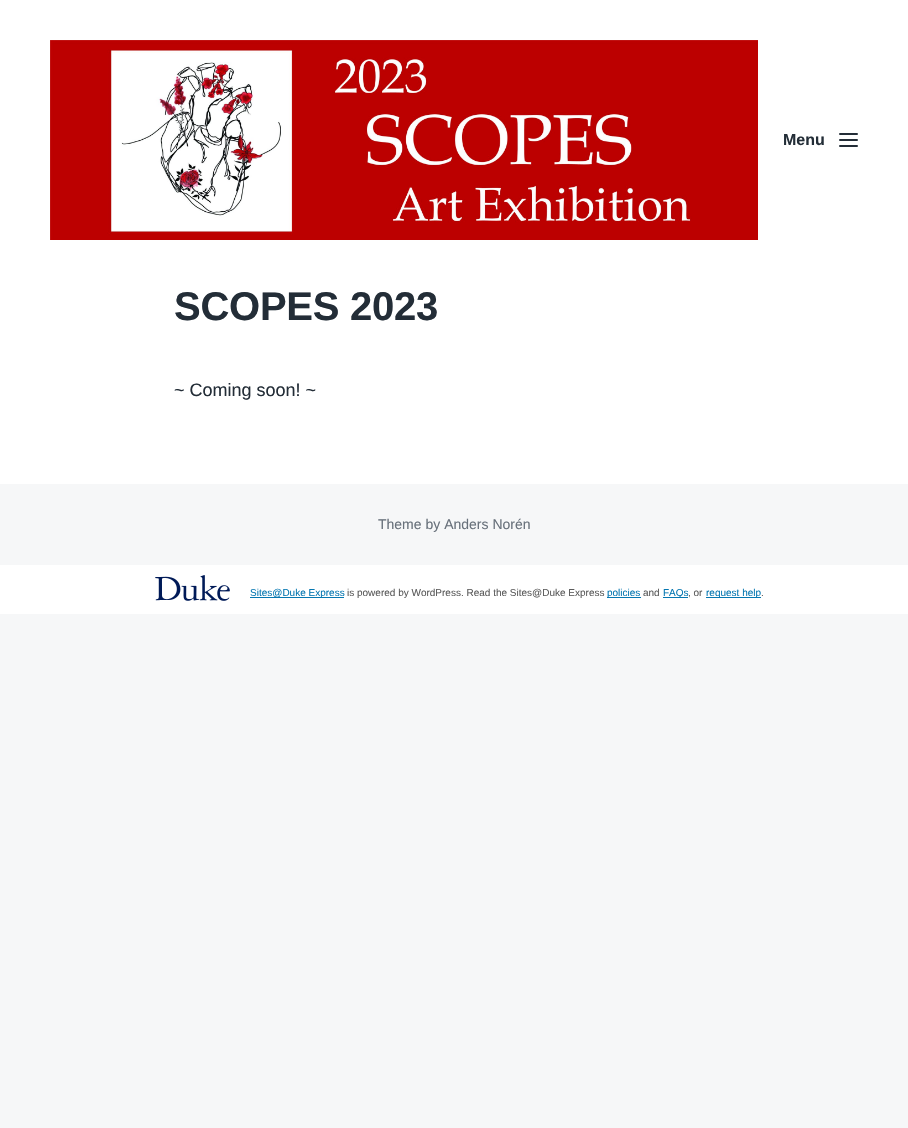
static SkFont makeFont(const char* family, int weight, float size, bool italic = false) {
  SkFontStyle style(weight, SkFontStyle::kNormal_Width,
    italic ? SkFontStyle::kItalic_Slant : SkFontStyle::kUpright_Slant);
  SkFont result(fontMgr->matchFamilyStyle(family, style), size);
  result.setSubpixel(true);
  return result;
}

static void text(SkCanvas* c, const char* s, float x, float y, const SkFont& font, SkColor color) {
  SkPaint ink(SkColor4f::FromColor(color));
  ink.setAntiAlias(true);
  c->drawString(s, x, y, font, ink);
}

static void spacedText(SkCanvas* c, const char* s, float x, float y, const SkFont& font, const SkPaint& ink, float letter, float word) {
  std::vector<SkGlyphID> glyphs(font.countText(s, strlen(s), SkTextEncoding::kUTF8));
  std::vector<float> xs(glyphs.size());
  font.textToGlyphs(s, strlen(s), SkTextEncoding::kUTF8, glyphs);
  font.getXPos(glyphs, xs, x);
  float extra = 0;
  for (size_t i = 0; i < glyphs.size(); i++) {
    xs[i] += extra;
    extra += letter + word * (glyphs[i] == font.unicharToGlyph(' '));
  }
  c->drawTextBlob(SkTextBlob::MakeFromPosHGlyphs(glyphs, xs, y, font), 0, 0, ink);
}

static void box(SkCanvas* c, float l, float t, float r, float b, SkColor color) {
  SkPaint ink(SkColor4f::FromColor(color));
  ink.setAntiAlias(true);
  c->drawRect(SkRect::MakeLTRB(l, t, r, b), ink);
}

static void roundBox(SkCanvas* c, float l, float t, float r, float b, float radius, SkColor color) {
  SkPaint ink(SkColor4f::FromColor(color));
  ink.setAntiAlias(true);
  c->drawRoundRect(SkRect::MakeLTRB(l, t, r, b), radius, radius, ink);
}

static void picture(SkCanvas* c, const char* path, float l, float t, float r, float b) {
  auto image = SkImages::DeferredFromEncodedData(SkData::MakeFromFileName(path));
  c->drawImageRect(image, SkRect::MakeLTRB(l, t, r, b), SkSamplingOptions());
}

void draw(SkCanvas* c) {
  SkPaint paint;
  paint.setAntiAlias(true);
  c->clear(0xfff6f7f8);
  box(c, 0, 0, 908, 484, 0xffffffff);
  picture(c, "img_01.png", 50, 40, 758, 240);
  SkFont face1 = makeFont("Liberation Sans", 700, 16);
  text(c, "Menu", 783, 145, face1, 0xff232d37);
  roundBox(c, 839, 133, 858, 135, 1, 0xff232d37);
  roundBox(c, 839, 139, 858, 141, 1, 0xff232d37);
  roundBox(c, 839, 145, 858, 147, 1, 0xff232d37);
  SkFont face2 = makeFont("Liberation Sans", 700, 40);
  paint.setColor(0xff232d37);
  spacedText(c, "SCOPES 2023", 174, 320, face2, paint, -0.25f, 0);
  SkFont face3 = makeFont("Liberation Sans", 400, 18);
  text(c, "~ Coming soon! ~", 174, 396, face3, 0xff232d37);
  SkFont face4 = makeFont("Liberation Sans", 400, 14);
  text(c, "Theme by Anders Norén", 378, 529, face4, 0xff68717b);
  box(c, 0, 565, 908, 614, 0xffffffff);
  picture(c, "img_02.png", 155, 575, 230, 601);
  box(c, 250, 597, 344, 598, 0xff0577b1);
  SkFont face5 = makeFont("Liberation Sans", 400, 10);
  text(c, "Sites@Duke Express", 250, 596, face5, 0xff0577b1);
  text(c, "is powered by WordPress. Read the Sites@Duke Express", 347, 596, face5, 0xff5b5b5b);
  box(c, 607, 597, 641, 598, 0xff0577b1);
  text(c, "policies", 607, 596, face5, 0xff0577b1);
  text(c, "and", 643, 596, face5, 0xff5b5b5b);
  box(c, 663, 597, 688, 598, 0xff0577b1);
  text(c, "FAQs", 663, 596, face5, 0xff0577b1);
  text(c, ", or", 688, 596, face5, 0xff5b5b5b);
  box(c, 706, 597, 761, 598, 0xff0577b1);
  text(c, "request help", 706, 596, face5, 0xff0577b1);
  text(c, ".", 761, 596, face5, 0xff5b5b5b);
}
